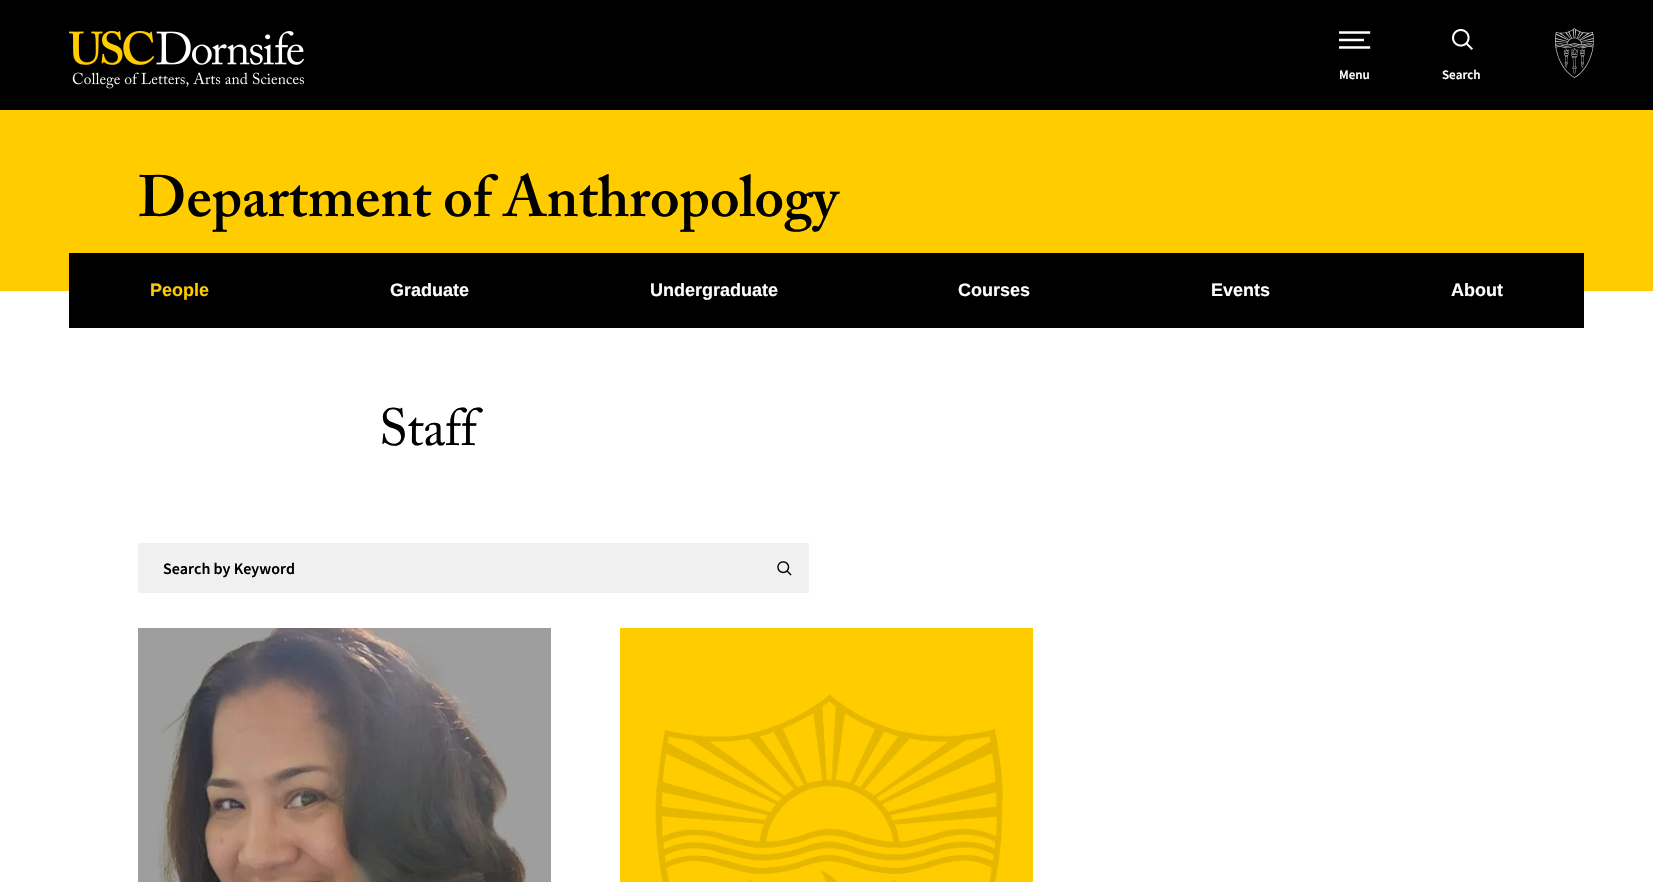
static SkFont makeFont(const char* family, int weight, float size, bool italic = false) {
  SkFontStyle style(weight, SkFontStyle::kNormal_Width,
    italic ? SkFontStyle::kItalic_Slant : SkFontStyle::kUpright_Slant);
  SkFont result(fontMgr->matchFamilyStyle(family, style), size);
  result.setSubpixel(true);
  return result;
}

static void text(SkCanvas* c, const char* s, float x, float y, const SkFont& font, SkColor color) {
  SkPaint ink(SkColor4f::FromColor(color));
  ink.setAntiAlias(true);
  c->drawString(s, x, y, font, ink);
}

static void spacedText(SkCanvas* c, const char* s, float x, float y, const SkFont& font, const SkPaint& ink, float letter, float word) {
  std::vector<SkGlyphID> glyphs(font.countText(s, strlen(s), SkTextEncoding::kUTF8));
  std::vector<float> xs(glyphs.size());
  font.textToGlyphs(s, strlen(s), SkTextEncoding::kUTF8, glyphs);
  font.getXPos(glyphs, xs, x);
  float extra = 0;
  for (size_t i = 0; i < glyphs.size(); i++) {
    xs[i] += extra;
    extra += letter + word * (glyphs[i] == font.unicharToGlyph(' '));
  }
  c->drawTextBlob(SkTextBlob::MakeFromPosHGlyphs(glyphs, xs, y, font), 0, 0, ink);
}

static void box(SkCanvas* c, float l, float t, float r, float b, SkColor color) {
  SkPaint ink(SkColor4f::FromColor(color));
  ink.setAntiAlias(true);
  c->drawRect(SkRect::MakeLTRB(l, t, r, b), ink);
}

static void picture(SkCanvas* c, const char* path, float l, float t, float r, float b) {
  auto image = SkImages::DeferredFromEncodedData(SkData::MakeFromFileName(path));
  c->drawImageRect(image, SkRect::MakeLTRB(l, t, r, b), SkSamplingOptions());
}

void draw(SkCanvas* c) {
  SkPaint paint;
  paint.setAntiAlias(true);
  c->clear(0xffffffff);
  box(c, 0, 0, 1653, 110, 0xff000000);
  picture(c, "img_01.png", 69, 31, 304, 89);
  picture(c, "img_02.png", 1339, 31, 1371, 49);
  SkFont face1 = makeFont("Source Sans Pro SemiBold", 600, 13);
  text(c, "Menu", 1339, 79, face1, 0xffffffff);
  picture(c, "img_03.png", 1452, 29, 1473, 50);
  text(c, "Search", 1442, 79, face1, 0xffffffff);
  picture(c, "img_04.png", 1555, 28, 1594, 78);
  box(c, 0, 110, 1653, 291, 0xffffcc00);
  SkFont face2 = makeFont("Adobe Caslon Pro", 600, 58);
  text(c, "Department of Anthropology", 138, 216, face2, 0xff000000);
  box(c, 69, 253, 1584, 328, 0xff000000);
  SkFont face3 = makeFont("Liberation Sans", 700, 18);
  text(c, "People", 150, 296, face3, 0xffffcc00);
  text(c, "Graduate", 390, 296, face3, 0xffffffff);
  text(c, "Undergraduate", 650, 296, face3, 0xffffffff);
  text(c, "Courses", 958, 296, face3, 0xffffffff);
  text(c, "Events", 1211, 296, face3, 0xffffffff);
  text(c, "About", 1451, 296, face3, 0xffffffff);
  SkFont face4 = makeFont("Adobe Caslon Pro", 400, 52);
  paint.setColor(0xff000000);
  spacedText(c, "Staff", 379, 445, face4, paint, -0.5f, 0);
  box(c, 138, 543, 809, 593, 0xfff0f0f0);
  SkFont face5 = makeFont("Source Sans Pro SemiBold", 600, 16);
  text(c, "Search by Keyword", 163, 574, face5, 0xff000000);
  picture(c, "img_05.png", 777, 561, 792, 576);
  picture(c, "img_06.png", 138, 628, 551, 882);
  picture(c, "img_07.png", 620, 628, 1033, 882);
}
